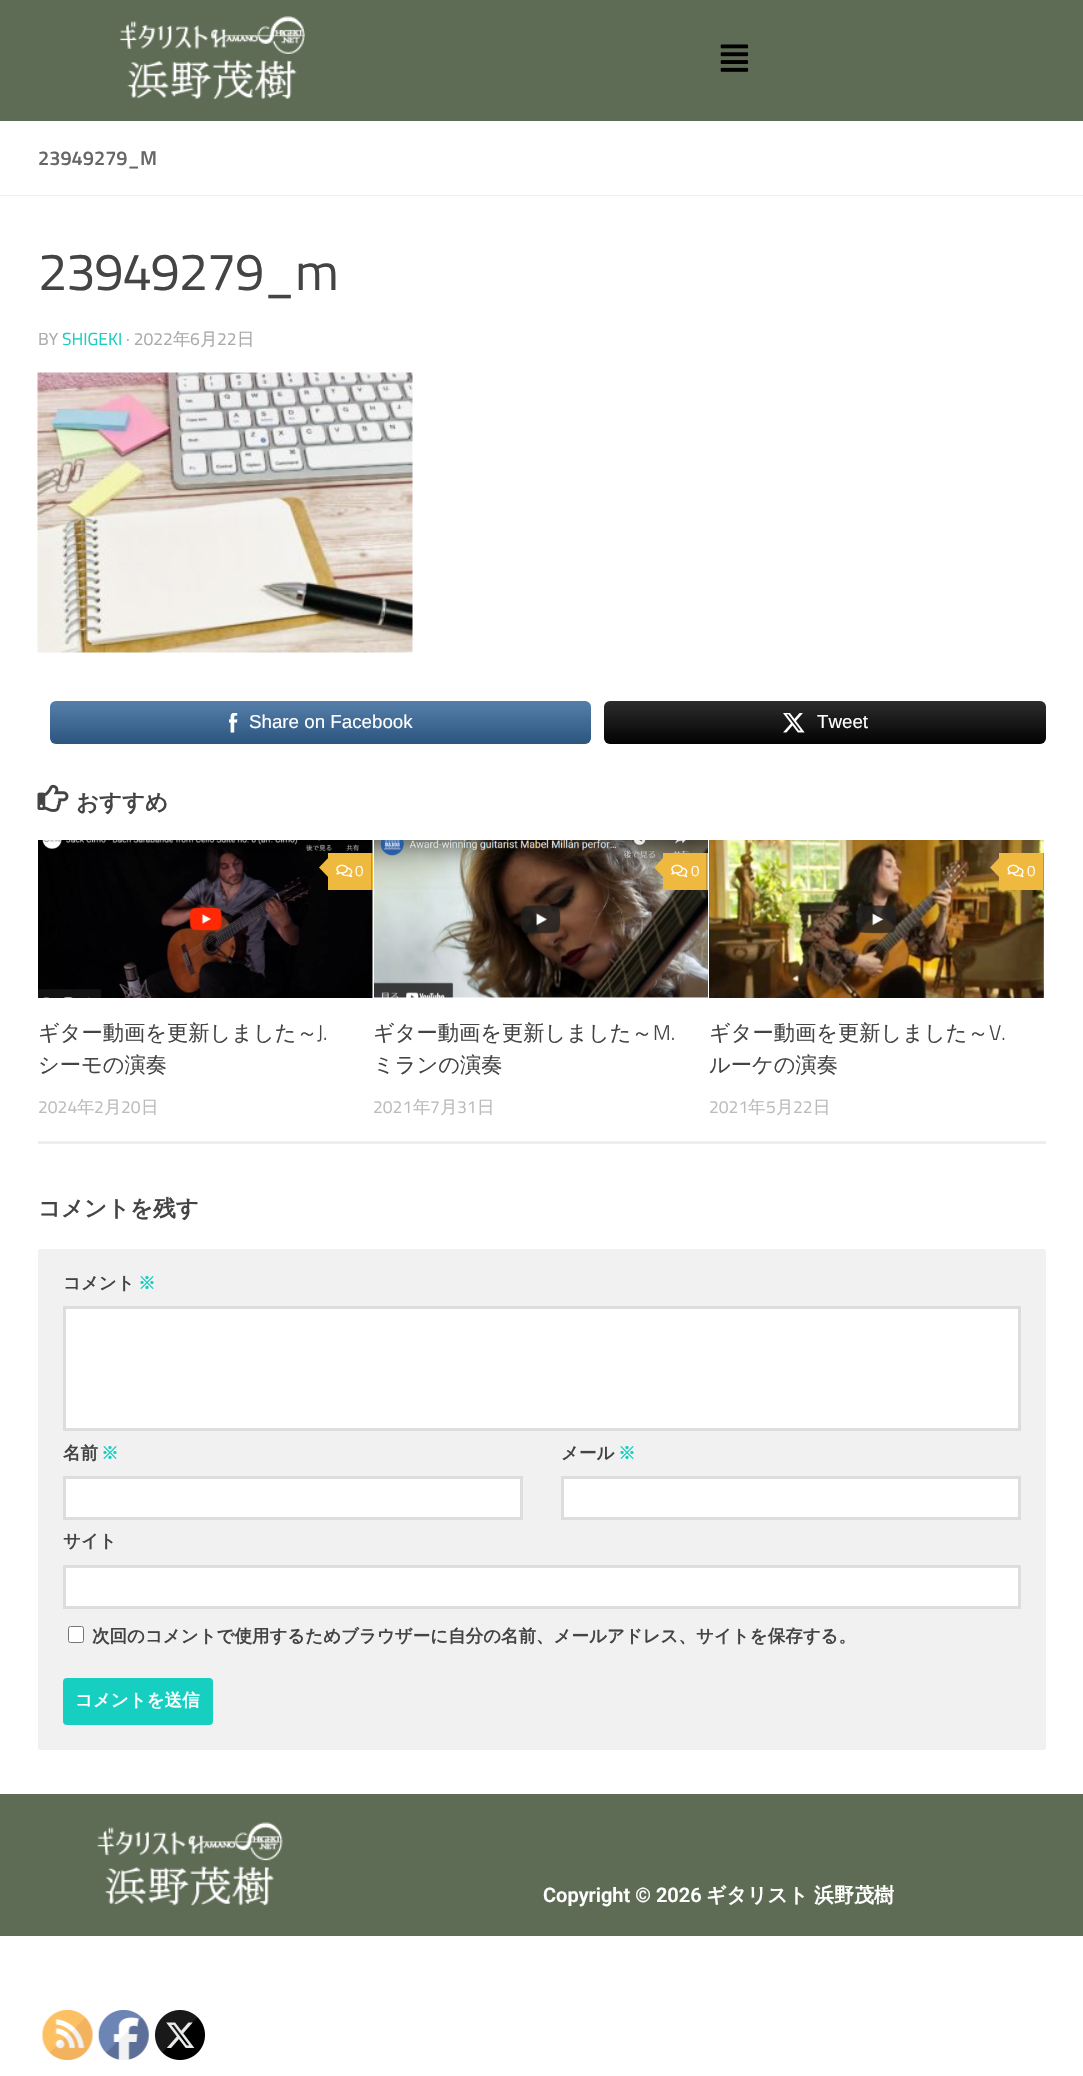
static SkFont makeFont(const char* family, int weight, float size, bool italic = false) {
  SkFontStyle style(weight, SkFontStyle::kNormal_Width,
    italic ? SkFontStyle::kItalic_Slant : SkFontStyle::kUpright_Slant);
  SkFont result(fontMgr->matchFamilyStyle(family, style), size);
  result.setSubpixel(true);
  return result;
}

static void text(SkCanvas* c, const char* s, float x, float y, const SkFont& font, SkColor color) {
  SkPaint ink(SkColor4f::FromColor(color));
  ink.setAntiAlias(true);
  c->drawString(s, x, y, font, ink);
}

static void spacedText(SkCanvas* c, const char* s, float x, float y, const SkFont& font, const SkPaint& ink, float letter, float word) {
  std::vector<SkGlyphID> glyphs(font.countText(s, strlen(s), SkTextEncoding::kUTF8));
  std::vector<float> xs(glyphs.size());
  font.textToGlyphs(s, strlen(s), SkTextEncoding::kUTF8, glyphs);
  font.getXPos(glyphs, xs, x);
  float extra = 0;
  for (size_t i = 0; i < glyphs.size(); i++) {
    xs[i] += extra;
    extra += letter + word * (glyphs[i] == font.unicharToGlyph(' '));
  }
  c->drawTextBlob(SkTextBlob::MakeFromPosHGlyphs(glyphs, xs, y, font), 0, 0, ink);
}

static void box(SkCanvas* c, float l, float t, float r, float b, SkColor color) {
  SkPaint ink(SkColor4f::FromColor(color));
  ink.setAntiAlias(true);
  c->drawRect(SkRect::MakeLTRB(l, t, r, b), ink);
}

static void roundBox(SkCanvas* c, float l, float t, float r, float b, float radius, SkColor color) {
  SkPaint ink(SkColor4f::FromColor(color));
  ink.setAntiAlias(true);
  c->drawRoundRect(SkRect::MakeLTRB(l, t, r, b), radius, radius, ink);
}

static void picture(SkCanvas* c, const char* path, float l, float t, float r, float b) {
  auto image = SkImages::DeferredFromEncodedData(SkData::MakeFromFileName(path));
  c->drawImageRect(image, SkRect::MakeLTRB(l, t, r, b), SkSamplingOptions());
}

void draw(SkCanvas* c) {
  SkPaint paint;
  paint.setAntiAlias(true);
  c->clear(0xffffffff);
  box(c, 0, 0, 1083, 121, 0xff5f6c55);
  picture(c, "img_01.png", 119, 16, 305, 99);
  picture(c, "img_02.png", 720, 44, 749, 72);
  box(c, 0, 195, 1083, 196, 0xffeeeeee);
  SkFont face1 = makeFont("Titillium", 600, 20);
  text(c, "23949279_M", 38, 165, face1, 0xff666666);
  SkFont face2 = makeFont("Titillium", 400, 52.5f);
  paint.setColor(0xff444444);
  spacedText(c, "23949279_m", 38, 290, face2, paint, -1.25f, 0);
  SkFont face3 = makeFont("Titillium", 400, 17.5f);
  text(c, "BY", 38, 345, face3, 0xffaaaaaa);
  text(c, "SHIGEKI", 62, 345, face3, 0xff16cfc1);
  text(c, "· 2022", 126, 345, face3, 0xffaaaaaa);
  SkFont face4 = makeFont("WenQuanYi Zen Hei", 500, 17.5f);
  text(c, "年", 173, 345, face4, 0xffaaaaaa);
  text(c, "6", 190, 345, face3, 0xffaaaaaa);
  text(c, "月", 200, 345, face4, 0xffaaaaaa);
  text(c, "22", 217, 345, face3, 0xffaaaaaa);
  text(c, "日", 237, 345, face4, 0xffaaaaaa);
  picture(c, "img_03.png", 37, 372, 413, 653);
  roundBox(c, 50, 701, 591, 744, 6, 0xff336699);
  {
    const SkColor colors[] = {0x2b000000, 0x2bffffff};
    const float stops[] = {0, 1};
    const SkPoint ends[] = {{321, 744}, {321, 701}};
    paint.setShader(SkGradientShader::MakeLinear(ends, colors, stops, 2, SkTileMode::kClamp));
    paint.setAlpha(255);
  }
  c->drawRoundRect(SkRect::MakeLTRB(50, 701, 591, 744), 6, 6, paint);
  picture(c, "img_04.png", 229, 713, 238, 733);
  SkFont face5 = makeFont("Liberation Sans", 400, 18.75f);
  text(c, "Share on Facebook", 249, 728, face5, 0xffffffff);
  roundBox(c, 604, 701, 1046, 744, 6, 0xff020202);
  {
    const SkColor colors[] = {0x2b000000, 0x2bffffff};
    const float stops[] = {0, 1};
    const SkPoint ends[] = {{825, 744}, {825, 701}};
    paint.setShader(SkGradientShader::MakeLinear(ends, colors, stops, 2, SkTileMode::kClamp));
    paint.setAlpha(255);
  }
  c->drawRoundRect(SkRect::MakeLTRB(604, 701, 1046, 744), 6, 6, paint);
  picture(c, "img_05.png", 783, 713, 805, 733);
  text(c, "Tweet", 817, 728, face5, 0xffffffff);
  picture(c, "img_06.png", 37, 784, 69, 812);
  SkFont face6 = makeFont("WenQuanYi Zen Hei", 700, 22.5f);
  text(c, "おすすめ", 76, 810, face6, 0xff444444);
  box(c, 38, 1141, 1046, 1144, 0xffeeeeee);
  picture(c, "img_07.png", 38, 840, 373, 998);
  box(c, 328, 853, 373, 890, 0xffefb93f);
  box(c, 371, 853, 372, 890, 0xffbf9432);
  paint.setShader(nullptr);
  paint.setColor(0xffefb93f);
  c->drawPath(SkPathBuilder().moveTo(330, 856).lineTo(330, 879).lineTo(319, 867.5f).close().detach(), paint);
  picture(c, "img_08.png", 336, 864, 353, 878);
  SkFont face7 = makeFont("Titillium", 300, 15);
  text(c, "0", 355, 876, face7, 0xffffffff);
  SkFont face8 = makeFont("WenQuanYi Zen Hei", 500, 21.25f);
  text(c, "ギター動画を更新しました～", 38, 1040, face8, 0xff444444);
  SkFont face9 = makeFont("Titillium", 300, 21.25f);
  text(c, "J.", 317, 1040, face9, 0xff444444);
  text(c, "シーモの演奏", 38, 1072, face8, 0xff444444);
  text(c, "2024", 38, 1113, face3, 0xffbbbbbb);
  text(c, "年", 77, 1113, face4, 0xffbbbbbb);
  text(c, "2", 94, 1113, face3, 0xffbbbbbb);
  text(c, "月", 104, 1113, face4, 0xffbbbbbb);
  text(c, "20", 121, 1113, face3, 0xffbbbbbb);
  text(c, "日", 141, 1113, face4, 0xffbbbbbb);
  picture(c, "img_09.png", 374, 840, 708, 998);
  box(c, 663, 853, 708, 890, 0xffefb93f);
  box(c, 706, 853, 707, 890, 0xffbf9432);
  c->drawPath(SkPathBuilder().moveTo(665, 856).lineTo(665, 879).lineTo(654, 867.5f).close().detach(), paint);
  picture(c, "img_08.png", 671, 864, 688, 878);
  text(c, "0", 691, 876, face7, 0xffffffff);
  text(c, "ギター動画を更新しました～", 373, 1040, face8, 0xff444444);
  text(c, "M.", 653, 1040, face9, 0xff444444);
  text(c, "ミランの演奏", 373, 1072, face8, 0xff444444);
  text(c, "2021", 373, 1113, face3, 0xffbbbbbb);
  text(c, "年", 413, 1113, face4, 0xffbbbbbb);
  text(c, "7", 430, 1113, face3, 0xffbbbbbb);
  text(c, "月", 440, 1113, face4, 0xffbbbbbb);
  text(c, "31", 457, 1113, face3, 0xffbbbbbb);
  text(c, "日", 477, 1113, face4, 0xffbbbbbb);
  picture(c, "img_10.png", 709, 840, 1044, 998);
  box(c, 999, 853, 1043, 890, 0xffefb93f);
  box(c, 1043, 853, 1044, 890, 0xffbf9432);
  c->drawPath(SkPathBuilder().moveTo(1001, 856).lineTo(1001, 879).lineTo(990, 867.5f).close().detach(), paint);
  picture(c, "img_11.png", 1007, 864, 1024, 878);
  text(c, "0", 1027, 876, face7, 0xffffffff);
  text(c, "ギター動画を更新しました～", 709, 1040, face8, 0xff444444);
  text(c, "V.", 989, 1040, face9, 0xff444444);
  text(c, "ルーケの演奏", 709, 1072, face8, 0xff444444);
  text(c, "2021", 709, 1113, face3, 0xffbbbbbb);
  text(c, "年", 748, 1113, face4, 0xffbbbbbb);
  text(c, "5", 766, 1113, face3, 0xffbbbbbb);
  text(c, "月", 776, 1113, face4, 0xffbbbbbb);
  text(c, "22", 793, 1113, face3, 0xffbbbbbb);
  text(c, "日", 813, 1113, face4, 0xffbbbbbb);
  text(c, "コメントを残す", 38, 1216, face6, 0xff444444);
  roundBox(c, 38, 1249, 1046, 1750, 2.5f, 0xfff1f1f1);
  SkFont face10 = makeFont("WenQuanYi Zen Hei", 700, 17.5f);
  text(c, "コメント", 63, 1289, face10, 0xff444444);
  text(c, "※", 138, 1289, face10, 0xff16cfc1);
  paint.setColor(0xffffffff);
  c->drawRect(SkRect::MakeLTRB(64.5f, 1307.5f, 1019.5f, 1429.5f), paint);
  paint.setStyle(SkPaint::kStroke_Style);
  paint.setStrokeWidth(3);
  paint.setColor(0xffdddddd);
  c->drawRect(SkRect::MakeLTRB(64.5f, 1307.5f, 1019.5f, 1429.5f), paint);
  text(c, "名前", 63, 1459, face10, 0xff444444);
  text(c, "※", 101, 1459, face10, 0xff16cfc1);
  paint.setStyle(SkPaint::kFill_Style);
  paint.setColor(0xffffffff);
  c->drawRect(SkRect::MakeLTRB(64.5f, 1477.5f, 521.5f, 1518.5f), paint);
  paint.setStyle(SkPaint::kStroke_Style);
  paint.setColor(0xffdddddd);
  c->drawRect(SkRect::MakeLTRB(64.5f, 1477.5f, 521.5f, 1518.5f), paint);
  text(c, "メール", 561, 1459, face10, 0xff444444);
  text(c, "※", 618, 1459, face10, 0xff16cfc1);
  paint.setStyle(SkPaint::kFill_Style);
  paint.setColor(0xffffffff);
  c->drawRect(SkRect::MakeLTRB(562.5f, 1477.5f, 1019.5f, 1518.5f), paint);
  paint.setStyle(SkPaint::kStroke_Style);
  paint.setColor(0xffdddddd);
  c->drawRect(SkRect::MakeLTRB(562.5f, 1477.5f, 1019.5f, 1518.5f), paint);
  text(c, "サイト", 63, 1547, face10, 0xff444444);
  paint.setStyle(SkPaint::kFill_Style);
  paint.setColor(0xffffffff);
  c->drawRect(SkRect::MakeLTRB(64.5f, 1566.5f, 1019.5f, 1607.5f), paint);
  paint.setStyle(SkPaint::kStroke_Style);
  paint.setColor(0xffdddddd);
  c->drawRect(SkRect::MakeLTRB(64.5f, 1566.5f, 1019.5f, 1607.5f), paint);
  paint.setStyle(SkPaint::kFill_Style);
  paint.setColor(0xffffffff);
  c->drawRoundRect(SkRect::MakeLTRB(68.5f, 1626.5f, 83.5f, 1642.5f), 2, 2, paint);
  paint.setStyle(SkPaint::kStroke_Style);
  paint.setStrokeWidth(1);
  paint.setColor(0xff767676);
  c->drawRoundRect(SkRect::MakeLTRB(68.5f, 1626.5f, 83.5f, 1642.5f), 2, 2, paint);
  text(c, "次回のコメントで使用するためブラウザーに自分の名前、メールアドレス、サイトを保存する。", 92, 1642, face10, 0xff444444);
  roundBox(c, 63, 1678, 213, 1725, 4, 0xff16cfc1);
  text(c, "コメントを送信", 75, 1706, face10, 0xffffffff);
  box(c, 0, 1794, 1083, 1936, 0xff5f6c55);
  picture(c, "img_12.png", 97, 1822, 283, 1906);
  SkFont face11 = makeFont("Roboto", 600, 20);
  text(c, "Copyright © 2026", 543, 1902, face11, 0xffffffff);
  SkFont face12 = makeFont("WenQuanYi Zen Hei", 700, 20);
  text(c, "ギタリスト", 706, 1902, face12, 0xffffffff);
  text(c, "浜野茂樹", 814, 1902, face12, 0xffffffff);
  picture(c, "img_13.png", 42, 2010, 93, 2060);
  picture(c, "img_14.png", 98, 2010, 149, 2060);
  picture(c, "img_15.png", 155, 2010, 205, 2060);
}
